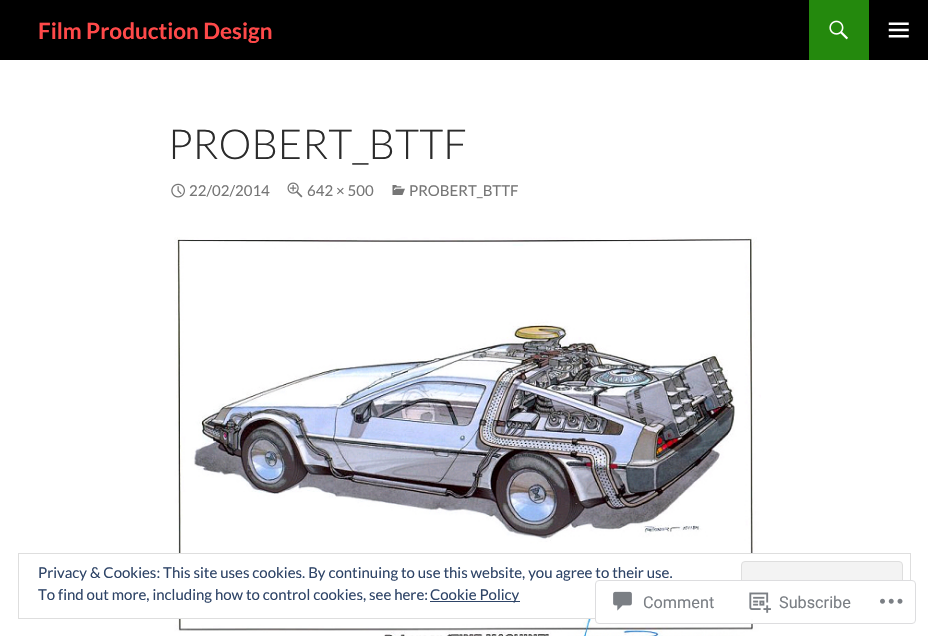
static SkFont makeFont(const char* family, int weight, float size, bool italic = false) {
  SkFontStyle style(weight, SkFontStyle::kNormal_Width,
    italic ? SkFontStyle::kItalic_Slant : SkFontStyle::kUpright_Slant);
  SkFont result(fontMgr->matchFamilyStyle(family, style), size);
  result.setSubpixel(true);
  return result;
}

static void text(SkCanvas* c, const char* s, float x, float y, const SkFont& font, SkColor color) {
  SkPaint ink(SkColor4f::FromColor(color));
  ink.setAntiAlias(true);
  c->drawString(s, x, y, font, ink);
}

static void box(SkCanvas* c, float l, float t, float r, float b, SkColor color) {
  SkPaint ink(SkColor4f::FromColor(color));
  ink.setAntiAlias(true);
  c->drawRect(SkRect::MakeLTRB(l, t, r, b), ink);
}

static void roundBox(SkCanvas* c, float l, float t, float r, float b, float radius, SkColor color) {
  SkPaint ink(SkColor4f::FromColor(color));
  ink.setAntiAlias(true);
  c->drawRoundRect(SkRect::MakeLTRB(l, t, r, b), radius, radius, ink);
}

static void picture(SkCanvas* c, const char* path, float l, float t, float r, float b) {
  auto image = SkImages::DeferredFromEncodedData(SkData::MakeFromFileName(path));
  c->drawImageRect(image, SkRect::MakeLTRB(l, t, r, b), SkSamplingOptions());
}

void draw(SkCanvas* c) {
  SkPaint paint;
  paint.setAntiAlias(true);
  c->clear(0xffffffff);
  box(c, 0, 0, 928, 60, 0xff000000);
  SkFont face1 = makeFont("Lato", 700, 22.5f);
  text(c, "Film Production Design", 38, 39, face1, 0xffff4949);
  box(c, 809, 0, 869, 60, 0xff24890d);
  picture(c, "img_01.png", 829, 20, 848, 40);
  picture(c, "img_02.png", 888, 22, 909, 38);
  SkFont face2 = makeFont("Lato", 300, 41.25f);
  text(c, "PROBERT_BTTF", 168, 159, face2, 0xff2b2b2b);
  picture(c, "img_03.png", 171, 183, 185, 198);
  SkFont face3 = makeFont("Lato", 400, 15);
  text(c, "22/02/2014", 189, 196, face3, 0xff767676);
  picture(c, "img_04.png", 287, 182, 303, 198);
  text(c, "642 × 500", 307, 196, face3, 0xff767676);
  picture(c, "img_05.png", 392, 185, 405, 195);
  text(c, "PROBERT_BTTF", 409, 196, face3, 0xff767676);
  picture(c, "img_06.png", 174, 237, 761, 636);
  box(c, 175, 554, 756, 618, 0xffffffff);
  paint.setStyle(SkPaint::kStroke_Style);
  paint.setStrokeWidth(1);
  paint.setColor(0xffdedede);
  c->drawRect(SkRect::MakeLTRB(18.5f, 553.5f, 910.5f, 618.5f), paint);
  text(c, "Privacy & Cookies: This site uses cookies. By continuing to use this website, you agree to their use.", 38, 578, face3, 0xff2e4467);
  paint.setStyle(SkPaint::kFill_Style);
  paint.setColor(0xfff3f3f3);
  c->drawRoundRect(SkRect::MakeLTRB(741.5f, 561.5f, 902.5f, 609.5f), 3.5f, 3.5f, paint);
  paint.setStyle(SkPaint::kStroke_Style);
  paint.setColor(0xffdedede);
  c->drawRoundRect(SkRect::MakeLTRB(741.5f, 561.5f, 902.5f, 609.5f), 3.5f, 3.5f, paint);
  text(c, "To find out more, including how to control cookies, see here:", 38, 600, face3, 0xff2e4467);
  box(c, 430, 601, 520, 602, 0xff2e4467);
  text(c, "Cookie Policy", 430, 600, face3, 0xff2e4467);
  roundBox(c, 595, 580, 916, 624, 4, 0xfaffffff);
  paint.setColor(0xfadcdcde);
  c->drawRoundRect(SkRect::MakeLTRB(595.5f, 580.5f, 915.5f, 623.5f), 3.5f, 3.5f, paint);
  picture(c, "img_07.png", 613, 591, 632, 611);
  SkFont face4 = makeFont("Roboto", 400, 16.25f);
  text(c, "Comment", 643, 608, face4, 0xff7b7f85);
  picture(c, "img_08.png", 749, 592, 771, 613);
  text(c, "Subscribe", 779, 608, face4, 0xff7b7f85);
  picture(c, "img_09.png", 880, 598, 903, 604);
}
